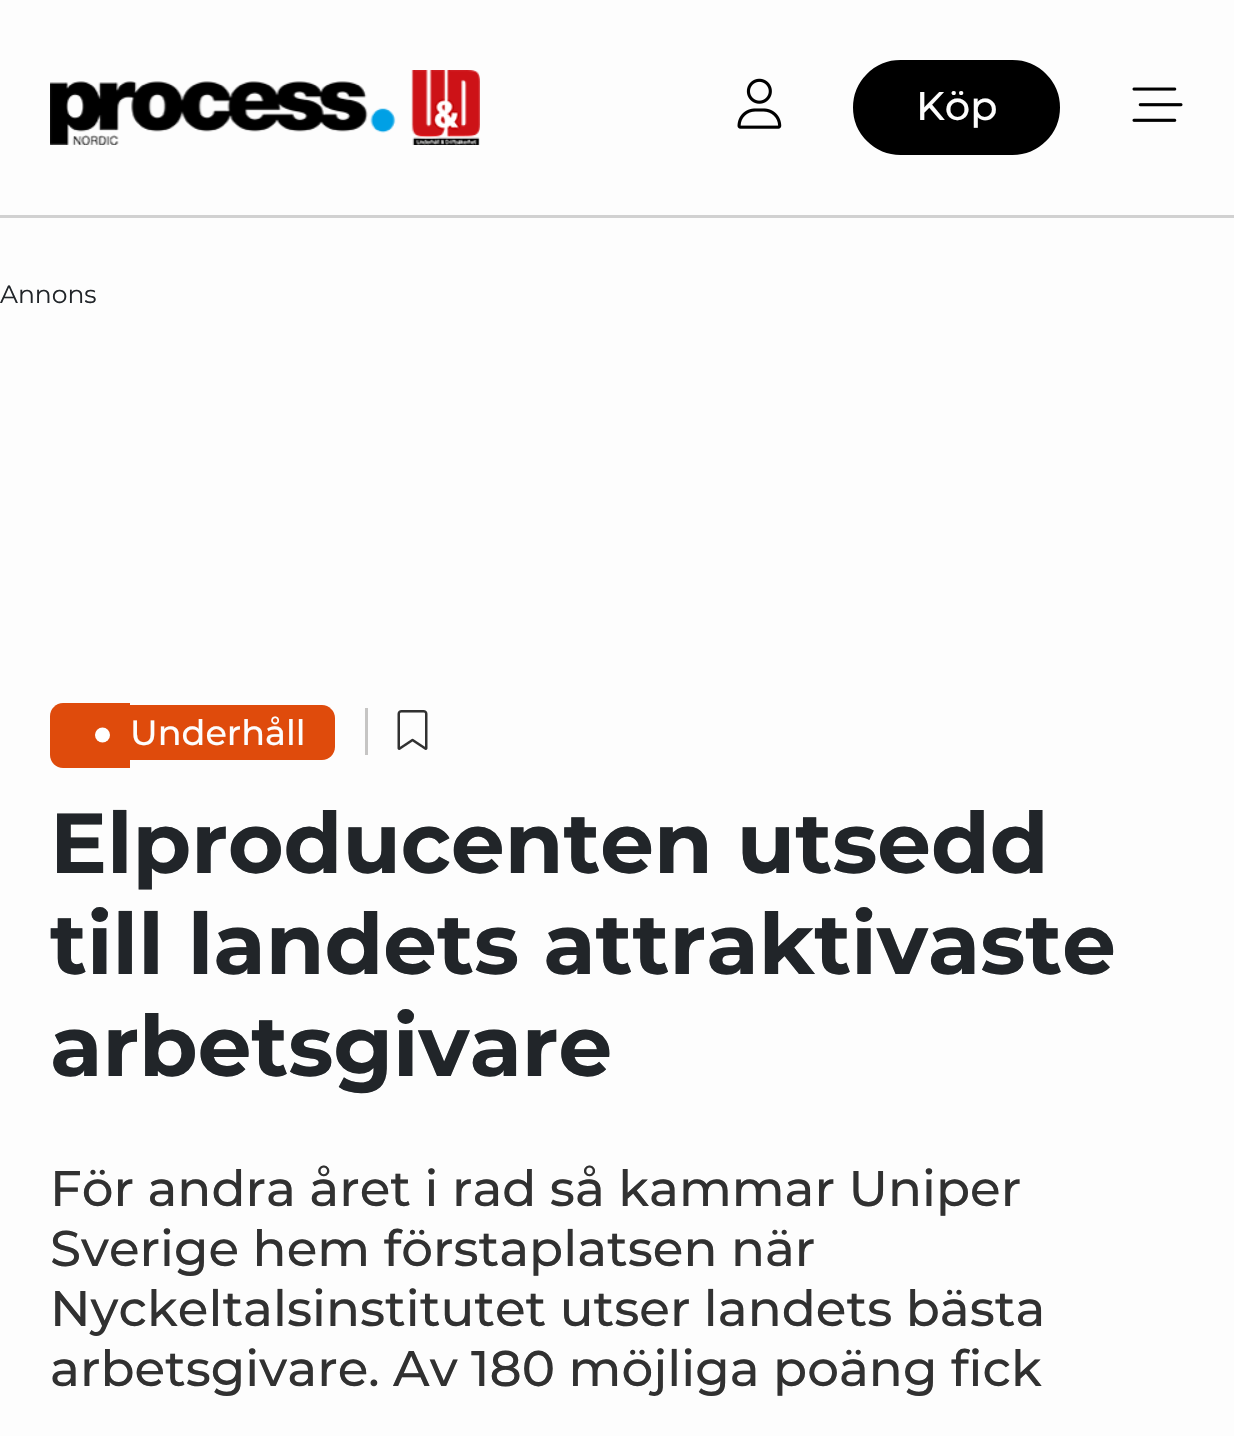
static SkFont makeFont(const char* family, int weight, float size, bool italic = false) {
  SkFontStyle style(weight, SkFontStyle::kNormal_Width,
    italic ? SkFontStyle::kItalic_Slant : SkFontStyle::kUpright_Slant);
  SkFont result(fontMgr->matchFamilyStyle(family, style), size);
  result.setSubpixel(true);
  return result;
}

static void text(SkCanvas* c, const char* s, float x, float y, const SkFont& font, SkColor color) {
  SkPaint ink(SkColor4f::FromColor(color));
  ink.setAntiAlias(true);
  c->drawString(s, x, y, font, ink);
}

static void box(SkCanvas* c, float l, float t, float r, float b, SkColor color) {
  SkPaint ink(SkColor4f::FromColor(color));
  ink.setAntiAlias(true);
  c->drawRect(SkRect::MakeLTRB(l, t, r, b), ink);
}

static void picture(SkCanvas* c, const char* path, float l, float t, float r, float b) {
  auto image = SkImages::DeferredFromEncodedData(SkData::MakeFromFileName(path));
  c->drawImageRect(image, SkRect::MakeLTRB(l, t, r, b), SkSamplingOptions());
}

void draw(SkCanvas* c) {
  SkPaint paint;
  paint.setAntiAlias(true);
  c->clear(0xfffdfdfd);
  box(c, 0, 215, 1234, 218, 0xffd1d1d1);
  picture(c, "img_01.png", 50, 70, 480, 145);
  picture(c, "img_02.png", 737, 78, 782, 129);
  paint.setColor(0xff000000);
  c->drawRoundRect(SkRect::MakeLTRB(854.5f, 61.5f, 1058.5f, 153.5f), 46, 46, paint);
  paint.setStyle(SkPaint::kStroke_Style);
  paint.setStrokeWidth(3);
  c->drawRoundRect(SkRect::MakeLTRB(854.5f, 61.5f, 1058.5f, 153.5f), 46, 46, paint);
  SkFont face1 = makeFont("Montserrat", 500, 40);
  text(c, "Köp", 916, 120, face1, 0xfffdfdfd);
  picture(c, "img_03.png", 1132, 87, 1183, 122);
  SkFont face2 = makeFont("Montserrat", 400, 25);
  text(c, "Annons", 0, 303, face2, 0xff212529);
  paint.setStyle(SkPaint::kFill_Style);
  paint.setColor(0xffdf4b0c);
  c->drawPath(SkPathBuilder().moveTo(130, 705).lineTo(322, 705).cubicTo(329, 705, 335, 711, 335, 718).lineTo(335, 747).cubicTo(335, 754, 329, 760, 322, 760).lineTo(130, 760).close().detach(), paint);
  SkFont face3 = makeFont("Montserrat", 500, 35);
  text(c, "Underhåll", 130, 745, face3, 0xfffdfdfd);
  c->drawPath(SkPathBuilder().moveTo(63, 703).lineTo(130, 703).lineTo(130, 768).lineTo(63, 768).cubicTo(56, 768, 50, 762, 50, 755).lineTo(50, 716).cubicTo(50, 709, 56, 703, 63, 703).close().detach(), paint);
  paint.setColor(0xffffffff);
  c->drawCircle(102.5f, 735, 7.5f, paint);
  box(c, 365, 708, 368, 755, 0xffc6c5c4);
  picture(c, "img_04.png", 397, 710, 428, 750);
  SkFont face4 = makeFont("Montserrat", 700, 85);
  text(c, "Elproducenten utsedd", 50, 873, face4, 0xff212529);
  text(c, "till landets attraktivaste", 50, 974, face4, 0xff212529);
  text(c, "arbetsgivare", 50, 1076, face4, 0xff212529);
  SkFont face5 = makeFont("Montserrat", 500, 50);
  text(c, "För andra året i rad så kammar Uniper", 50, 1206, face5, 0xff313131);
  text(c, "Sverige hem förstaplatsen när", 50, 1266, face5, 0xff313131);
  text(c, "Nyckeltalsinstitutet utser landets bästa", 50, 1326, face5, 0xff313131);
  text(c, "arbetsgivare. Av 180 möjliga poäng fick", 50, 1386, face5, 0xff313131);
}
